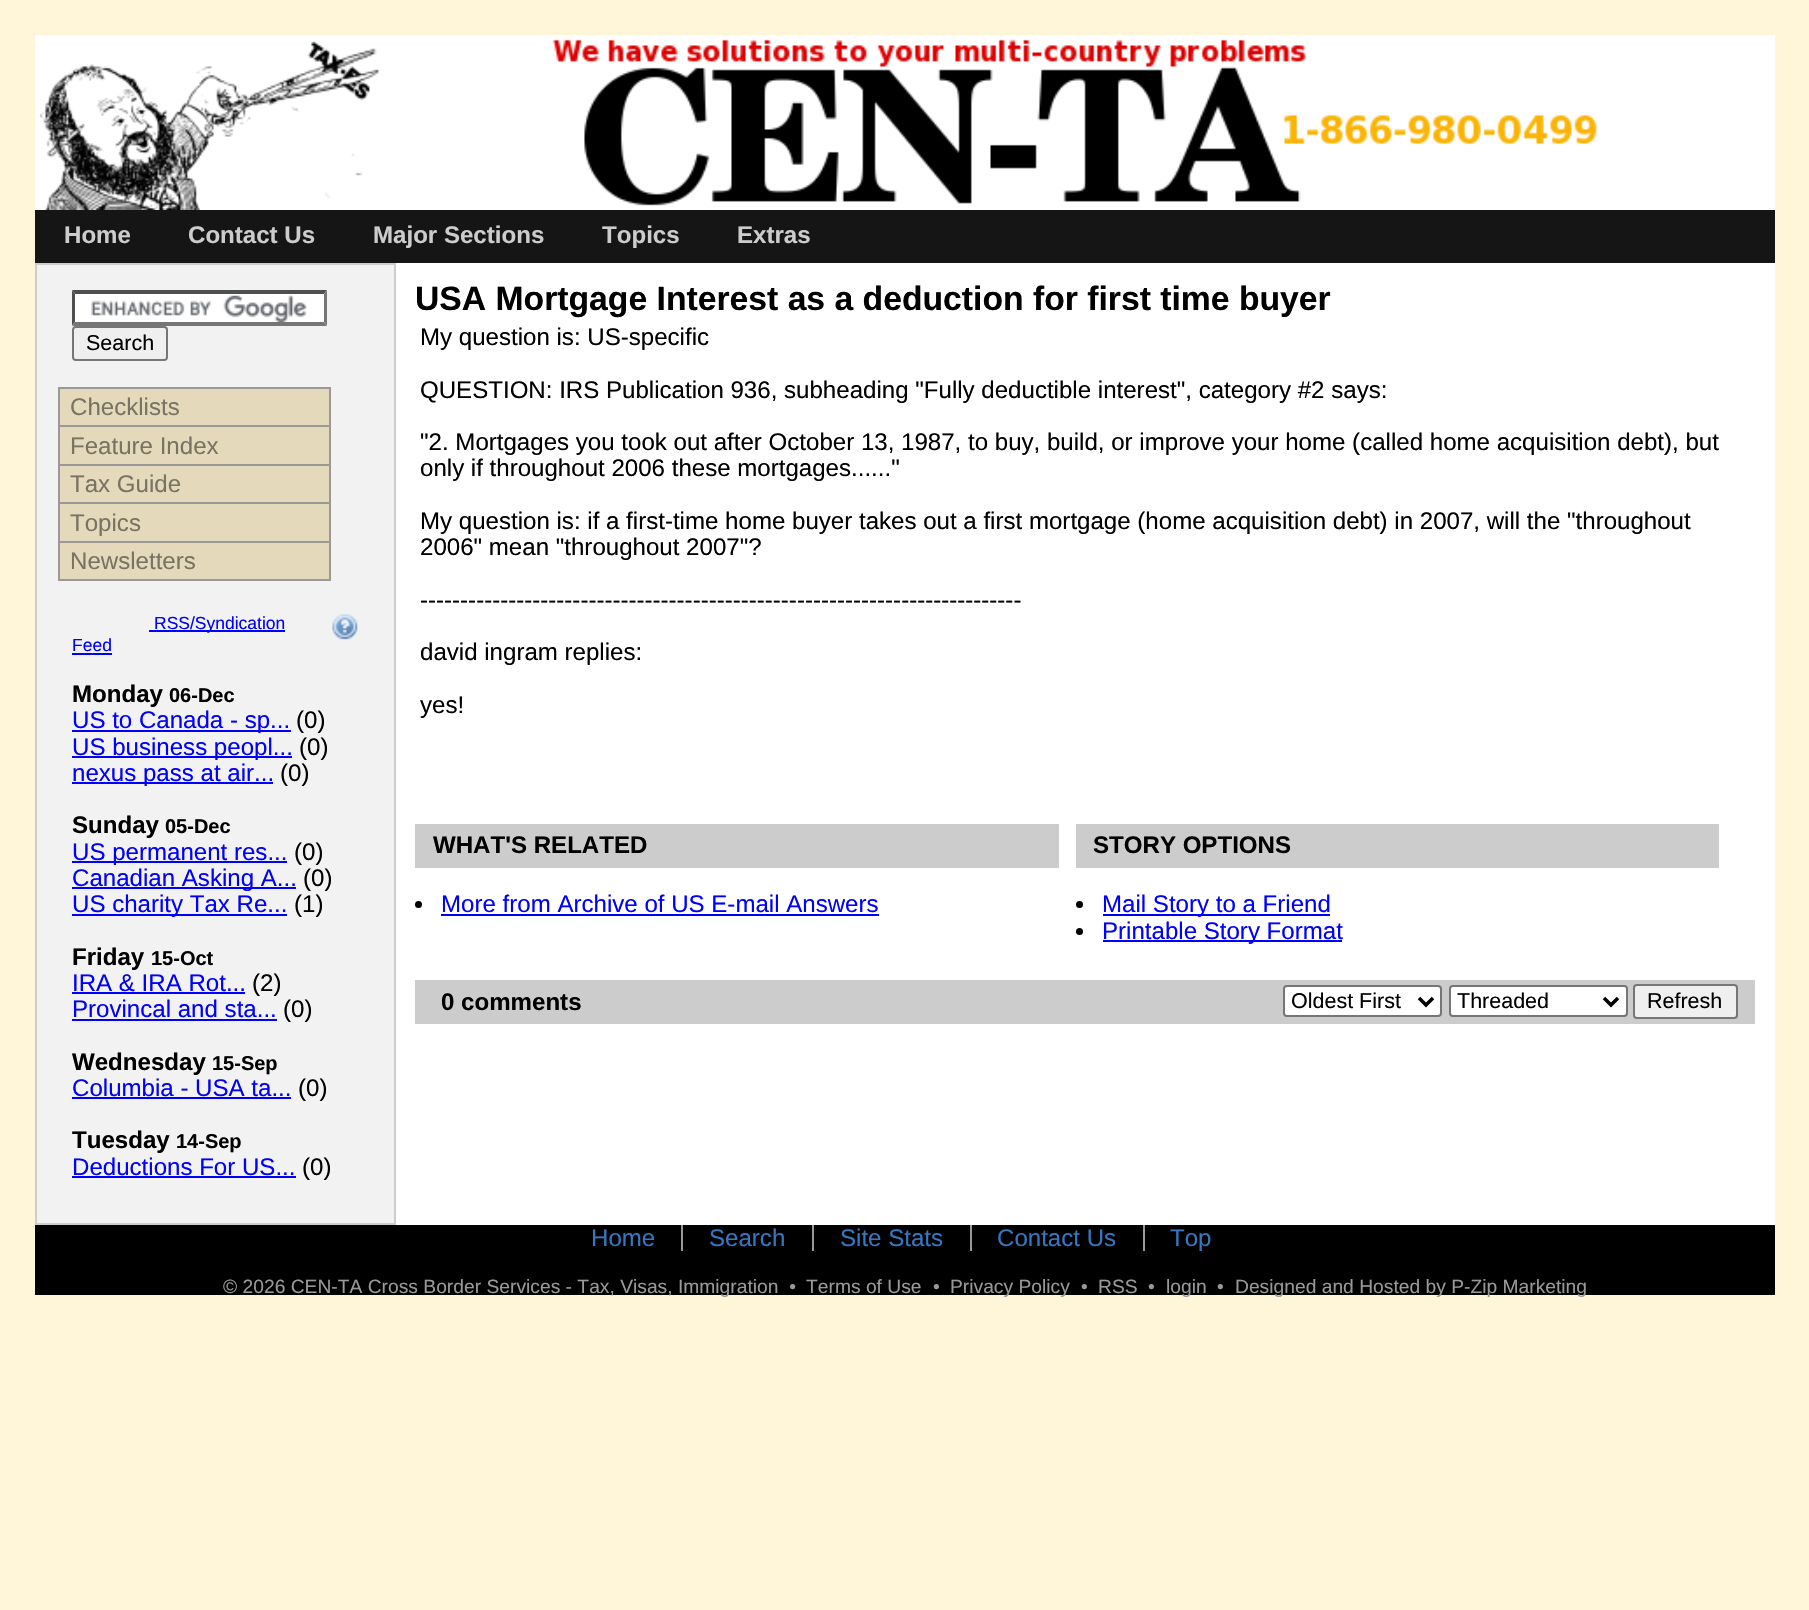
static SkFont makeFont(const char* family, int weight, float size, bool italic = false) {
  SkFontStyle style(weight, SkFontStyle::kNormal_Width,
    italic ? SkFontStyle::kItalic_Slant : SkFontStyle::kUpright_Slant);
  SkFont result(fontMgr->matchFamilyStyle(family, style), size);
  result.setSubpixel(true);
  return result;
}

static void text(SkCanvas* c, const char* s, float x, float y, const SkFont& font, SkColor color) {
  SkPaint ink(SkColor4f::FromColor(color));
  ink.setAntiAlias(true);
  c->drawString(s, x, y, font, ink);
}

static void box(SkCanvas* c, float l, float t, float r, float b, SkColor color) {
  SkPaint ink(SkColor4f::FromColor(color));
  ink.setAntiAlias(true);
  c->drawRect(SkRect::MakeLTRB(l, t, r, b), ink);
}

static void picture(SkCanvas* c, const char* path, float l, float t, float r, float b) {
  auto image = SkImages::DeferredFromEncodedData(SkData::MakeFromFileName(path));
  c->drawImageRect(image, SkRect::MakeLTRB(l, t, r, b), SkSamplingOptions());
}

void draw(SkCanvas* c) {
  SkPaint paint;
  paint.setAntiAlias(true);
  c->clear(0xfffff6d9);
  box(c, 35, 35, 1775, 1225, 0xffffffff);
  picture(c, "img_01.png", 39, 39, 1597, 210);
  box(c, 35, 210, 1775, 263, 0xff151515);
  SkFont face1 = makeFont("Liberation Sans", 700, 24.08f);
  text(c, "Home", 64, 243, face1, 0xffcccccc);
  text(c, "Contact Us", 188, 243, face1, 0xffcccccc);
  text(c, "Major Sections", 373, 243, face1, 0xffcccccc);
  text(c, "Topics", 602, 243, face1, 0xffcccccc);
  text(c, "Extras", 737, 243, face1, 0xffcccccc);
  paint.setColor(0xfff2f2f2);
  c->drawRect(SkRect::MakeLTRB(36, 264, 395, 1224), paint);
  paint.setStyle(SkPaint::kStroke_Style);
  paint.setStrokeWidth(2);
  paint.setColor(0xffcccccc);
  c->drawRect(SkRect::MakeLTRB(36, 264, 395, 1224), paint);
  box(c, 72, 291, 327, 326, 0xffffffff);
  picture(c, "img_02.png", 91, 295, 307, 322);
  paint.setStyle(SkPaint::kFill_Style);
  paint.setColor(0xff4f4f4f);
  c->drawPath(SkPathBuilder().moveTo(72, 290).lineTo(327, 290).lineTo(324, 294).lineTo(75, 294).close().detach(), paint);
  paint.setColor(0xff767676);
  c->drawPath(SkPathBuilder().moveTo(327, 290.5f).lineTo(327, 325.5f).lineTo(324, 322).lineTo(324, 294).close().detach(), paint);
  c->drawPath(SkPathBuilder().moveTo(327, 326).lineTo(72, 326).lineTo(75, 322).lineTo(324, 322).close().detach(), paint);
  paint.setColor(0xff4f4f4f);
  c->drawPath(SkPathBuilder().moveTo(72, 325.5f).lineTo(72, 290.5f).lineTo(75, 294).lineTo(75, 322).close().detach(), paint);
  paint.setColor(0xffefefef);
  c->drawRoundRect(SkRect::MakeLTRB(73, 327, 167, 360), 3, 3, paint);
  paint.setStyle(SkPaint::kStroke_Style);
  paint.setColor(0xff767676);
  c->drawRoundRect(SkRect::MakeLTRB(73, 327, 167, 360), 3, 3, paint);
  SkFont face2 = makeFont("Liberation Sans", 400, 21.5f);
  text(c, "Search", 86, 350, face2, 0xff000000);
  box(c, 58, 579, 331, 581, 0xff999999);
  box(c, 60, 389, 329, 425, 0xffe4dabb);
  box(c, 58, 387, 331, 389, 0xff999999);
  box(c, 329, 387, 331, 425, 0xff999999);
  box(c, 58, 387, 60, 425, 0xff999999);
  SkFont face3 = makeFont("Liberation Sans", 400, 24.08f);
  text(c, "Checklists", 70, 415, face3, 0xff787362);
  box(c, 60, 427, 329, 464, 0xffe4dabb);
  box(c, 58, 425, 331, 427, 0xff999999);
  box(c, 329, 425, 331, 464, 0xff999999);
  box(c, 58, 425, 60, 464, 0xff999999);
  text(c, "Feature Index", 70, 454, face3, 0xff787362);
  box(c, 60, 466, 329, 502, 0xffe4dabb);
  box(c, 58, 464, 331, 466, 0xff999999);
  box(c, 329, 464, 331, 502, 0xff999999);
  box(c, 58, 464, 60, 502, 0xff999999);
  text(c, "Tax Guide", 70, 492, face3, 0xff787362);
  box(c, 60, 504, 329, 541, 0xffe4dabb);
  box(c, 58, 502, 331, 504, 0xff999999);
  box(c, 329, 502, 331, 541, 0xff999999);
  box(c, 58, 502, 60, 541, 0xff999999);
  text(c, "Topics", 70, 531, face3, 0xff787362);
  box(c, 60, 543, 329, 579, 0xffe4dabb);
  box(c, 58, 541, 331, 543, 0xff999999);
  box(c, 329, 541, 331, 579, 0xff999999);
  box(c, 58, 541, 60, 579, 0xff999999);
  text(c, "Newsletters", 70, 569, face3, 0xff787362);
  box(c, 149, 630, 285, 632, 0xff0000ff);
  SkFont face4 = makeFont("Liberation Sans", 400, 17.5f);
  text(c, "RSS/Syndication", 154, 629, face4, 0xff0000ff);
  text(c, "Feed", 72, 651, face4, 0xff0000ff);
  box(c, 72, 653, 112, 655, 0xff0000ff);
  picture(c, "img_03.png", 332, 614, 358, 640);
  text(c, "Monday", 72, 702, face1, 0xff000000);
  SkFont face5 = makeFont("Liberation Sans", 700, 20);
  text(c, "06-Dec", 169, 702, face5, 0xff000000);
  box(c, 72, 730, 291, 732, 0xff0000ff);
  text(c, "US to Canada - sp...", 72, 728, face3, 0xff0000ff);
  text(c, "(0)", 296, 728, face3, 0xff000000);
  box(c, 72, 756, 292, 758, 0xff0000ff);
  text(c, "US business peopl...", 72, 755, face3, 0xff0000ff);
  text(c, "(0)", 299, 755, face3, 0xff000000);
  box(c, 72, 782, 273, 784, 0xff0000ff);
  text(c, "nexus pass at air...", 72, 781, face3, 0xff0000ff);
  text(c, "(0)", 280, 781, face3, 0xff000000);
  text(c, "Sunday", 72, 833, face1, 0xff000000);
  text(c, "05-Dec", 165, 833, face5, 0xff000000);
  box(c, 72, 861, 287, 863, 0xff0000ff);
  text(c, "US permanent res...", 72, 860, face3, 0xff0000ff);
  text(c, "(0)", 294, 860, face3, 0xff000000);
  box(c, 72, 887, 296, 889, 0xff0000ff);
  text(c, "Canadian Asking A...", 72, 886, face3, 0xff0000ff);
  text(c, "(0)", 303, 886, face3, 0xff000000);
  box(c, 72, 914, 287, 916, 0xff0000ff);
  text(c, "US charity Tax Re...", 72, 912, face3, 0xff0000ff);
  text(c, "(1)", 294, 912, face3, 0xff000000);
  text(c, "Friday", 72, 965, face1, 0xff000000);
  text(c, "15-Oct", 151, 965, face5, 0xff000000);
  text(c, "IRA & IRA Rot...", 72, 991, face3, 0xff0000ff);
  box(c, 72, 992, 245, 994, 0xff0000ff);
  text(c, "(2)", 252, 991, face3, 0xff000000);
  text(c, "Provincal and sta...", 72, 1017, face3, 0xff0000ff);
  box(c, 72, 1019, 277, 1021, 0xff0000ff);
  text(c, "(0)", 283, 1017, face3, 0xff000000);
  text(c, "Wednesday", 72, 1070, face1, 0xff000000);
  text(c, "15-Sep", 212, 1070, face5, 0xff000000);
  text(c, "Columbia - USA ta...", 72, 1096, face3, 0xff0000ff);
  box(c, 72, 1097, 291, 1099, 0xff0000ff);
  text(c, "(0)", 298, 1096, face3, 0xff000000);
  text(c, "Tuesday", 72, 1148, face1, 0xff000000);
  text(c, "14-Sep", 176, 1148, face5, 0xff000000);
  text(c, "Deductions For US...", 72, 1175, face3, 0xff0000ff);
  box(c, 72, 1176, 296, 1178, 0xff0000ff);
  text(c, "(0)", 302, 1175, face3, 0xff000000);
  SkFont face6 = makeFont("Liberation Sans", 700, 33.7f);
  text(c, "USA Mortgage Interest as a deduction for first time buyer", 415, 310, face6, 0xff000000);
  text(c, "My question is: US-specific", 420, 345, face3, 0xff000000);
  text(c, "QUESTION: IRS Publication 936, subheading \"Fully deductible interest\", category #2 says:", 420, 398, face3, 0xff000000);
  text(c, "\"2. Mortgages you took out after October 13, 1987, to buy, build, or improve your home (called home acquisition debt), but", 420, 450, face3, 0xff000000);
  text(c, "only if throughout 2006 these mortgages......\"", 420, 476, face3, 0xff000000);
  text(c, "My question is: if a first-time home buyer takes out a first mortgage (home acquisition debt) in 2007, will the \"throughout", 420, 529, face3, 0xff000000);
  text(c, "2006\" mean \"throughout 2007\"?", 420, 555, face3, 0xff000000);
  text(c, "---------------------------------------------------------------------------", 420, 608, face3, 0xff000000);
  text(c, "david ingram replies:", 420, 660, face3, 0xff000000);
  text(c, "yes!", 420, 713, face3, 0xff000000);
  box(c, 415, 824, 1059, 868, 0xffcccccc);
  text(c, "WHAT'S RELATED", 433, 853, face1, 0xff000000);
  paint.setStyle(SkPaint::kFill_Style);
  paint.setColor(0xff000000);
  c->drawCircle(418.5f, 904.5f, 3.5f, paint);
  text(c, "More from Archive of US E-mail Answers", 441, 912, face3, 0xff0000ff);
  box(c, 441, 914, 879, 916, 0xff0000ff);
  box(c, 1076, 824, 1719, 868, 0xffcccccc);
  text(c, "STORY OPTIONS", 1093, 853, face1, 0xff000000);
  c->drawCircle(1079.5f, 904.5f, 3.5f, paint);
  box(c, 1103, 914, 1330, 916, 0xff0000ff);
  text(c, "Mail Story to a Friend", 1102, 912, face3, 0xff0000ff);
  c->drawCircle(1079.5f, 931.5f, 3.5f, paint);
  box(c, 1103, 940, 1342, 942, 0xff0000ff);
  text(c, "Printable Story Format", 1102, 939, face3, 0xff0000ff);
  box(c, 415, 980, 1755, 1024, 0xffcccccc);
  text(c, "0 comments", 441, 1010, face1, 0xff000000);
  paint.setColor(0xffffffff);
  c->drawRoundRect(SkRect::MakeLTRB(1284, 986, 1441, 1016), 3, 3, paint);
  paint.setStyle(SkPaint::kStroke_Style);
  paint.setColor(0xff767676);
  c->drawRoundRect(SkRect::MakeLTRB(1284, 986, 1441, 1016), 3, 3, paint);
  paint.setStrokeWidth(3.5f);
  paint.setColor(0xff000000);
  c->drawPath(SkPathBuilder().moveTo(1419, 998).lineTo(1426, 1005).lineTo(1433, 998).detach(), paint);
  text(c, "Oldest First", 1291, 1008, face2, 0xff000000);
  paint.setStyle(SkPaint::kFill_Style);
  paint.setColor(0xffffffff);
  c->drawRoundRect(SkRect::MakeLTRB(1450, 986, 1627, 1016), 3, 3, paint);
  paint.setStyle(SkPaint::kStroke_Style);
  paint.setStrokeWidth(2);
  paint.setColor(0xff767676);
  c->drawRoundRect(SkRect::MakeLTRB(1450, 986, 1627, 1016), 3, 3, paint);
  paint.setStrokeWidth(3.5f);
  paint.setColor(0xff000000);
  c->drawPath(SkPathBuilder().moveTo(1604, 998).lineTo(1611, 1005).lineTo(1618, 998).detach(), paint);
  text(c, "Threaded", 1457, 1008, face2, 0xff000000);
  paint.setStyle(SkPaint::kFill_Style);
  paint.setColor(0xffefefef);
  c->drawRoundRect(SkRect::MakeLTRB(1634, 985, 1737, 1018), 3, 3, paint);
  paint.setStyle(SkPaint::kStroke_Style);
  paint.setStrokeWidth(2);
  paint.setColor(0xff767676);
  c->drawRoundRect(SkRect::MakeLTRB(1634, 985, 1737, 1018), 3, 3, paint);
  text(c, "Refresh", 1647, 1008, face2, 0xff000000);
  box(c, 35, 1225, 1775, 1295, 0xff000000);
  text(c, "Home", 591, 1246, face3, 0xff3677c0);
  box(c, 681, 1225, 683, 1251, 0xff999999);
  text(c, "Search", 709, 1246, face3, 0xff3677c0);
  box(c, 812, 1225, 814, 1251, 0xff999999);
  text(c, "Site Stats", 840, 1246, face3, 0xff3677c0);
  box(c, 970, 1225, 972, 1251, 0xff999999);
  text(c, "Contact Us", 997, 1246, face3, 0xff3677c0);
  box(c, 1143, 1225, 1145, 1251, 0xff999999);
  text(c, "Top", 1170, 1246, face3, 0xff3677c0);
  SkFont face7 = makeFont("Liberation Sans", 400, 19.25f);
  text(c, "© 2026 CEN-TA Cross Border Services - Tax, Visas, Immigration  •", 223, 1293, face7, 0xff999999);
  text(c, "Terms of Use", 806, 1293, face7, 0xff999999);
  text(c, "•", 933, 1293, face7, 0xff999999);
  text(c, "Privacy Policy", 950, 1293, face7, 0xff999999);
  text(c, "•", 1081, 1293, face7, 0xff999999);
  text(c, "RSS", 1098, 1293, face7, 0xff999999);
  text(c, "•", 1148, 1293, face7, 0xff999999);
  text(c, "login", 1166, 1293, face7, 0xff999999);
  text(c, "•", 1217, 1293, face7, 0xff999999);
  text(c, "Designed and Hosted by P-Zip Marketing", 1235, 1293, face7, 0xff999999);
}
